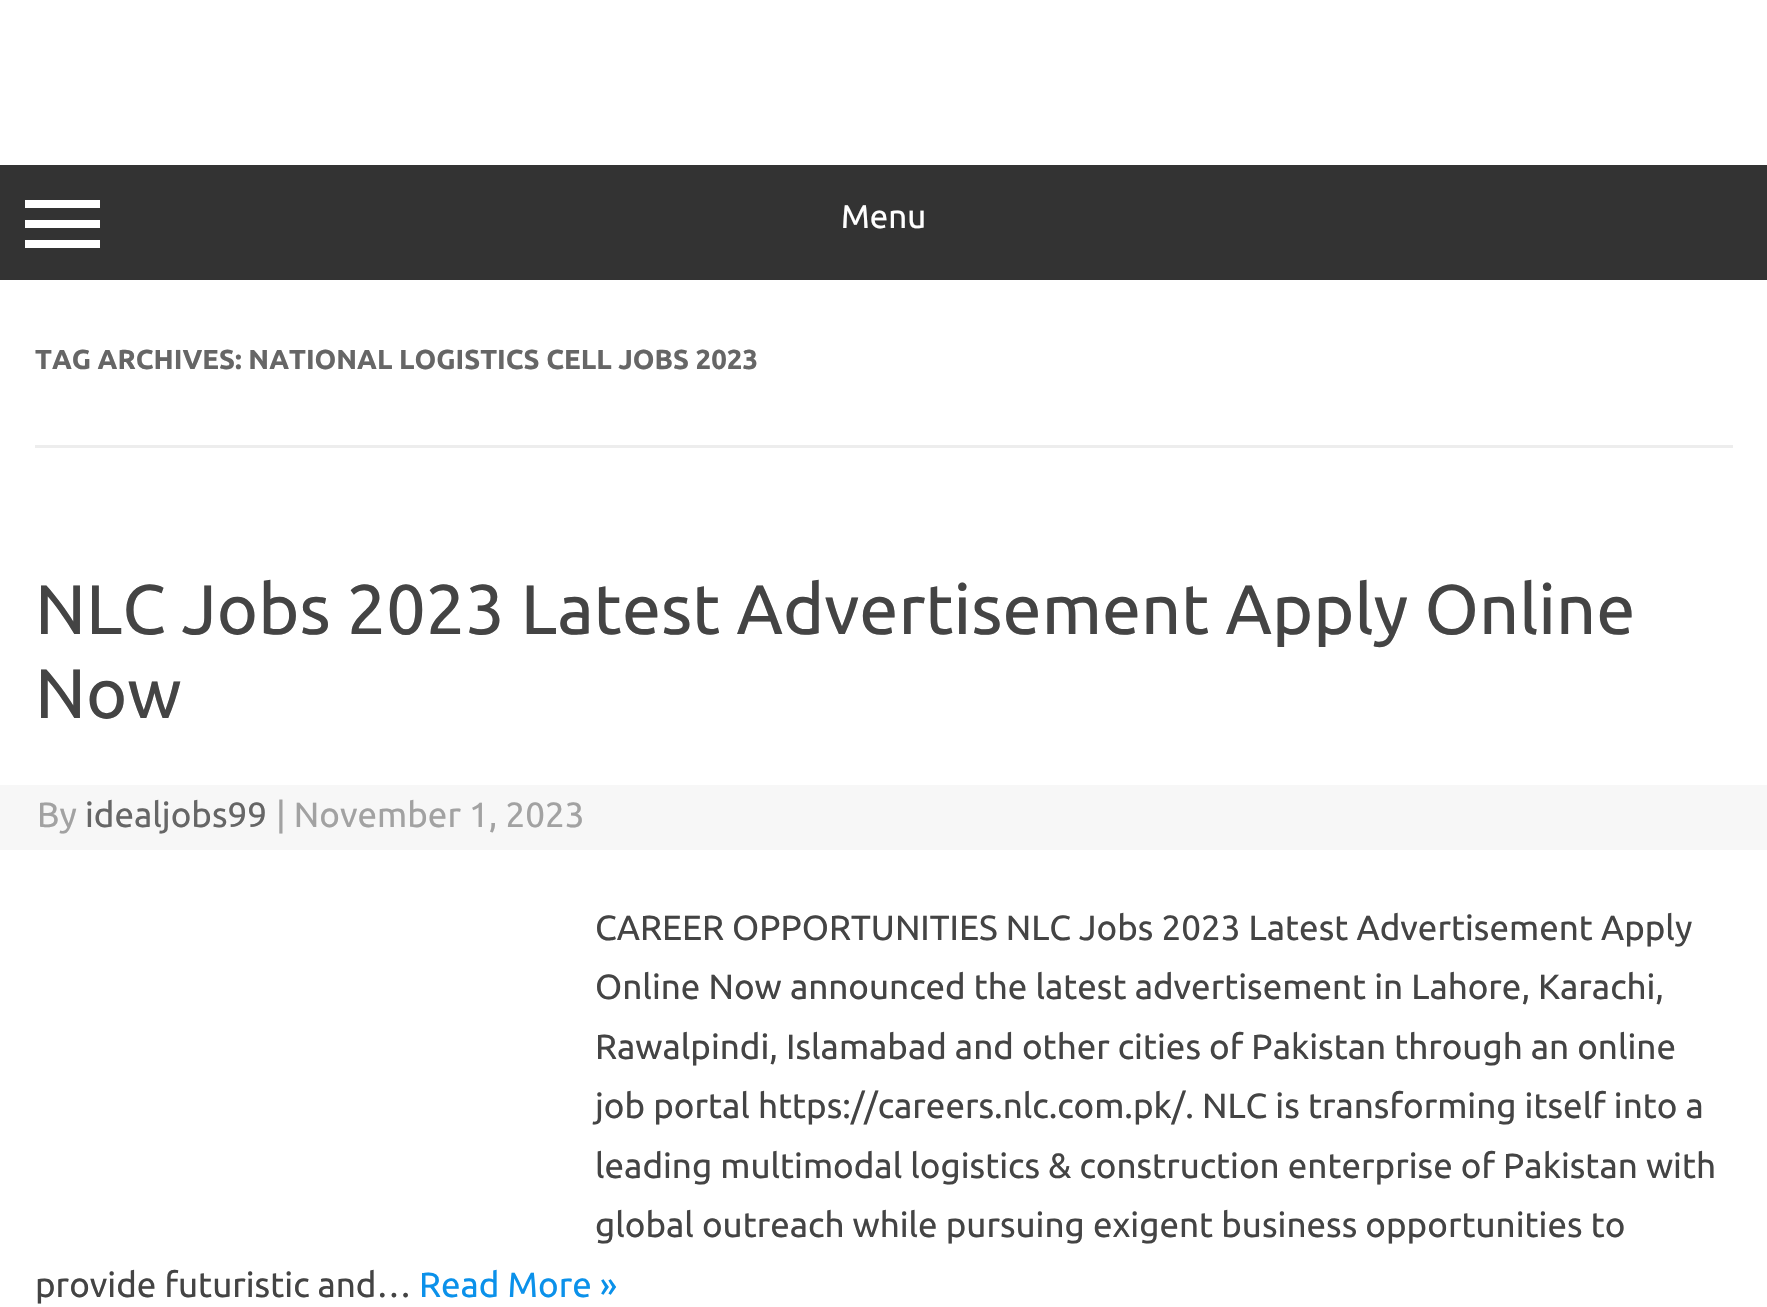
static SkFont makeFont(const char* family, int weight, float size, bool italic = false) {
  SkFontStyle style(weight, SkFontStyle::kNormal_Width,
    italic ? SkFontStyle::kItalic_Slant : SkFontStyle::kUpright_Slant);
  SkFont result(fontMgr->matchFamilyStyle(family, style), size);
  result.setSubpixel(true);
  return result;
}

static void text(SkCanvas* c, const char* s, float x, float y, const SkFont& font, SkColor color) {
  SkPaint ink(SkColor4f::FromColor(color));
  ink.setAntiAlias(true);
  c->drawString(s, x, y, font, ink);
}

static void box(SkCanvas* c, float l, float t, float r, float b, SkColor color) {
  SkPaint ink(SkColor4f::FromColor(color));
  ink.setAntiAlias(true);
  c->drawRect(SkRect::MakeLTRB(l, t, r, b), ink);
}

void draw(SkCanvas* c) {
  SkPaint paint;
  paint.setAntiAlias(true);
  c->clear(0xffffffff);
  box(c, 0, 165, 1767, 280, 0xff333333);
  box(c, 25, 200, 100, 208, 0xffffffff);
  box(c, 25, 220, 100, 228, 0xffffffff);
  box(c, 25, 240, 100, 248, 0xffffffff);
  SkFont face1 = makeFont("Ubuntu", 400, 33);
  text(c, "Menu", 841, 228, face1, 0xffffffff);
  box(c, 35, 445, 1733, 448, 0xffededed);
  SkFont face2 = makeFont("Ubuntu", 700, 27.5f);
  text(c, "TAG ARCHIVES: NATIONAL LOGISTICS CELL JOBS 2023", 35, 369, face2, 0xff666666);
  SkFont face3 = makeFont("Ubuntu", 400, 70);
  text(c, "NLC Jobs 2023 Latest Advertisement Apply Online", 35, 634, face3, 0xff444444);
  text(c, "Now", 35, 718, face3, 0xff444444);
  box(c, 0, 785, 1767, 850, 0xfff7f7f7);
  SkFont face4 = makeFont("Ubuntu", 400, 35);
  text(c, "By", 37, 827, face4, 0xffa2a2a2);
  text(c, "idealjobs99", 85, 827, face4, 0xff666666);
  text(c, "| November 1, 2023", 276, 827, face4, 0xffa2a2a2);
  text(c, "CAREER OPPORTUNITIES NLC Jobs 2023 Latest Advertisement Apply", 595, 940, face4, 0xff444444);
  text(c, "Online Now announced the latest advertisement in Lahore, Karachi,", 595, 999, face4, 0xff444444);
  text(c, "Rawalpindi, Islamabad and other cities of Pakistan through an online", 595, 1059, face4, 0xff444444);
  text(c, "job portal https://careers.nlc.com.pk/. NLC is transforming itself into a", 595, 1118, face4, 0xff444444);
  text(c, "leading multimodal logistics & construction enterprise of Pakistan with", 595, 1178, face4, 0xff444444);
  text(c, "global outreach while pursuing exigent business opportunities to", 595, 1237, face4, 0xff444444);
  text(c, "provide futuristic and…", 35, 1297, face4, 0xff444444);
  text(c, "Read More »", 419, 1297, face4, 0xff0b91ea);
}
